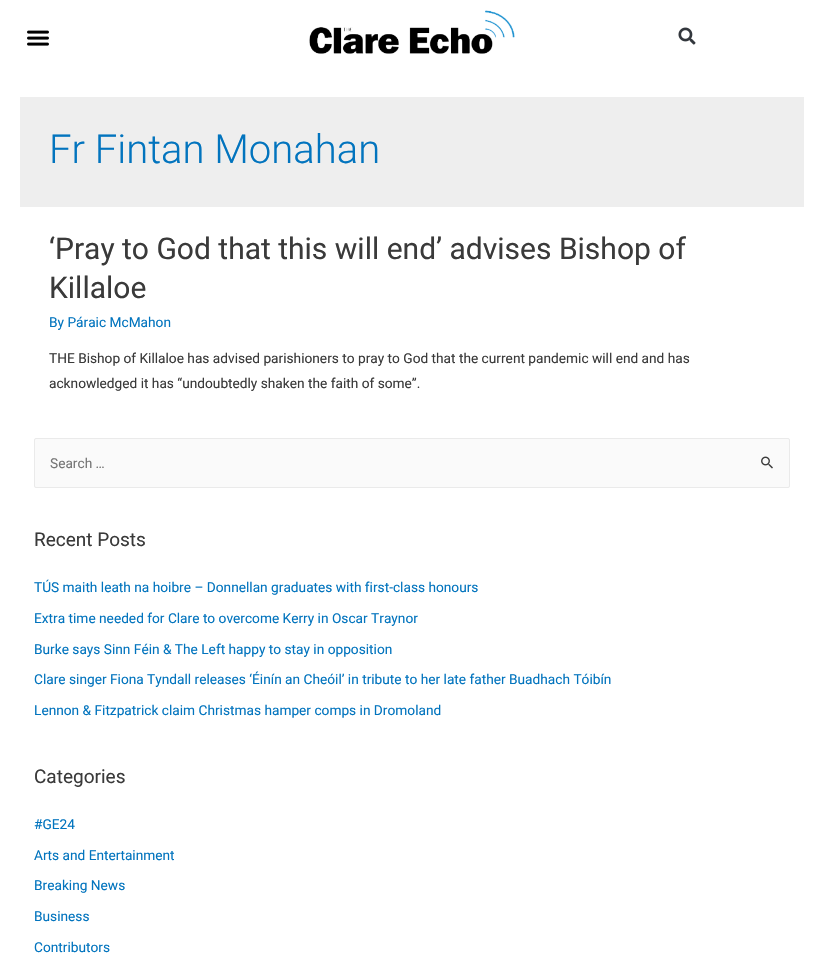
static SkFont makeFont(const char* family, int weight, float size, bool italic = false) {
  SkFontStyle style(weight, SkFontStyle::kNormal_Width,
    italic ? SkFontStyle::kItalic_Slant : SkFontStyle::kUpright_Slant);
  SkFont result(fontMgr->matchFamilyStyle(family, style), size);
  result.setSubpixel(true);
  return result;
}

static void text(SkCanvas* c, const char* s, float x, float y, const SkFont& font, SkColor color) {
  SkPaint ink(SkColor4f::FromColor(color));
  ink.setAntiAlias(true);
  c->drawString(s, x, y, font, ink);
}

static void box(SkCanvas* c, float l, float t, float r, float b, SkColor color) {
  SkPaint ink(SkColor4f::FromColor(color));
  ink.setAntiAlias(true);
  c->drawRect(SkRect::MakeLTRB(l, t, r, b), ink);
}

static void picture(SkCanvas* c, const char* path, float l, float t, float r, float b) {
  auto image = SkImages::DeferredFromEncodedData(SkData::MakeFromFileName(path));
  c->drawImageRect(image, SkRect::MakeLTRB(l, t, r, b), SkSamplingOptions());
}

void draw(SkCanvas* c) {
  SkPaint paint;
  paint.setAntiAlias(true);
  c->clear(0xffffffff);
  picture(c, "img_01.png", 27, 30, 49, 46);
  picture(c, "img_02.png", 309, 10, 515, 54);
  picture(c, "img_03.png", 678, 27, 696, 45);
  box(c, 20, 97, 804, 207, 0xffeeeeee);
  SkFont face1 = makeFont("Roboto", 300, 40);
  text(c, "Fr Fintan Monahan", 49, 163, face1, 0xff0274be);
  SkFont face2 = makeFont("Roboto", 400, 30);
  text(c, "‘Pray to God that this will end’ advises Bishop of", 49, 259, face2, 0xff3a3a3a);
  text(c, "Killaloe", 49, 298, face2, 0xff3a3a3a);
  SkFont face3 = makeFont("Roboto", 400, 13.7f);
  text(c, "By Páraic McMahon", 49, 327, face3, 0xff0274be);
  text(c, "THE Bishop of Killaloe has advised parishioners to pray to God that the current pandemic will end and has", 49, 363, face3, 0xff3a3a3a);
  text(c, "acknowledged it has “undoubtedly shaken the faith of some”.", 49, 388, face3, 0xff3a3a3a);
  paint.setColor(0xfffafafa);
  c->drawRoundRect(SkRect::MakeLTRB(34.5f, 438.5f, 789.5f, 487.5f), 1.5f, 1.5f, paint);
  paint.setStyle(SkPaint::kStroke_Style);
  paint.setStrokeWidth(1);
  paint.setColor(0xffeaeaea);
  c->drawRoundRect(SkRect::MakeLTRB(34.5f, 438.5f, 789.5f, 487.5f), 1.5f, 1.5f, paint);
  text(c, "Search …", 50, 468, face3, 0xff757575);
  picture(c, "img_04.png", 761, 456, 773, 469);
  SkFont face4 = makeFont("Roboto", 400, 19);
  text(c, "Recent Posts", 34, 546, face4, 0xff3a3a3a);
  text(c, "TÚS maith leath na hoibre – Donnellan graduates with first-class honours", 34, 592, face3, 0xff0274be);
  text(c, "Extra time needed for Clare to overcome Kerry in Oscar Traynor", 34, 623, face3, 0xff0274be);
  text(c, "Burke says Sinn Féin & The Left happy to stay in opposition", 34, 654, face3, 0xff0274be);
  text(c, "Clare singer Fiona Tyndall releases ‘Éinín an Cheóil’ in tribute to her late father Buadhach Tóibín", 34, 684, face3, 0xff0274be);
  text(c, "Lennon & Fitzpatrick claim Christmas hamper comps in Dromoland", 34, 715, face3, 0xff0274be);
  text(c, "Categories", 34, 783, face4, 0xff3a3a3a);
  text(c, "#GE24", 34, 829, face3, 0xff0274be);
  text(c, "Arts and Entertainment", 34, 860, face3, 0xff0274be);
  text(c, "Breaking News", 34, 890, face3, 0xff0274be);
  text(c, "Business", 34, 921, face3, 0xff0274be);
  text(c, "Contributors", 34, 952, face3, 0xff0274be);
}
